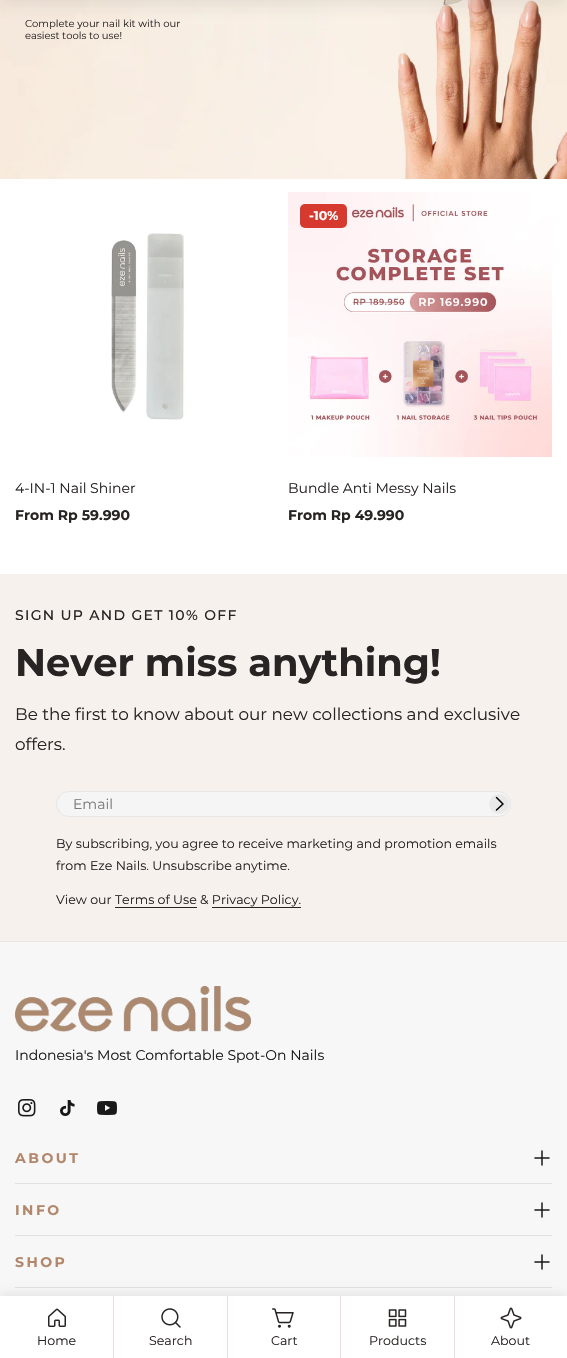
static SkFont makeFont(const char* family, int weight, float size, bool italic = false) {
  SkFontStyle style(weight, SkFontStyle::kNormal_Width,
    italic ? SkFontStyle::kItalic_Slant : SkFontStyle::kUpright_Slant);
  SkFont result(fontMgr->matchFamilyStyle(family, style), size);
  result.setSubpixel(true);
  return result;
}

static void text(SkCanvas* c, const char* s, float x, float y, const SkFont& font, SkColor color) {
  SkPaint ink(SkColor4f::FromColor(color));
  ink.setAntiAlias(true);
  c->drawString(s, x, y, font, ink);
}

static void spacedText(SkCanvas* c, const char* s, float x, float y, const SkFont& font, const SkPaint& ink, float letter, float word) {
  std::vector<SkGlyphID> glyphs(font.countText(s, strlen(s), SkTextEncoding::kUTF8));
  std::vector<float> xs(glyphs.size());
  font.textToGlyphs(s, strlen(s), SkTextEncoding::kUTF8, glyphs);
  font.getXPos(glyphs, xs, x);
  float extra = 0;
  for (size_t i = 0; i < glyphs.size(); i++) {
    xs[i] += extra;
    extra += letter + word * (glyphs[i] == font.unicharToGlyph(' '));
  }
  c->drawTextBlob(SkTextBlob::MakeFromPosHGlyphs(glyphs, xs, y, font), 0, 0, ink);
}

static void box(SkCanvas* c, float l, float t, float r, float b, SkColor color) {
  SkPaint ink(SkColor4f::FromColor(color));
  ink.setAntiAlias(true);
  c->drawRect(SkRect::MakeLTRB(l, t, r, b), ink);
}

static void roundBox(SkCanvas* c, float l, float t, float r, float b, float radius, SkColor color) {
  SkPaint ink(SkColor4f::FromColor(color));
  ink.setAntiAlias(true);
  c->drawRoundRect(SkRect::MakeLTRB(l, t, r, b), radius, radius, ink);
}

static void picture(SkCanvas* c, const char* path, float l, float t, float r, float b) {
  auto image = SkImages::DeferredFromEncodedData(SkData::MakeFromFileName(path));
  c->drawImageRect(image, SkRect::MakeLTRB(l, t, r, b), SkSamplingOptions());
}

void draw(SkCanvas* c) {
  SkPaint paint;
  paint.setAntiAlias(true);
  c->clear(0xffffffff);
  picture(c, "img_01.png", 0, 0, 567, 179);
  paint.setColor(0x1a292424);
  paint.setMaskFilter(SkMaskFilter::MakeBlur(kNormal_SkBlurStyle, 9));
  c->drawRect(SkRect::MakeLTRB(0, -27, 567, 4), paint);
  paint.setMaskFilter(nullptr);
  SkFont face1 = makeFont("Montserrat", 400, 10);
  text(c, "Complete your nail kit with our", 25, 27, face1, 0xff292424);
  text(c, "easiest tools to use!", 25, 39, face1, 0xff292424);
  picture(c, "img_02.png", 111, 233, 185, 420);
  SkFont face2 = makeFont("Montserrat", 400, 14);
  text(c, "4-IN-1 Nail Shiner", 15, 493, face2, 0xff292424);
  SkFont face3 = makeFont("Montserrat", 700, 14);
  text(c, "From Rp 59.990", 15, 520, face3, 0xff292424);
  picture(c, "img_03.png", 288, 192, 552, 457);
  roundBox(c, 300, 204, 347, 228, 5, 0xffd63a2f);
  SkFont face4 = makeFont("Montserrat", 700, 12.6f);
  text(c, "-10%", 309, 220, face4, 0xffffffff);
  text(c, "Bundle Anti Messy Nails", 288, 493, face2, 0xff292424);
  text(c, "From Rp 49.990", 288, 520, face3, 0xff292424);
  box(c, 0, 574, 567, 941, 0xfff7f1ee);
  SkFont face5 = makeFont("Montserrat", 500, 14);
  paint.setColor(0xff292424);
  spacedText(c, "SIGN UP AND GET 10% OFF", 15, 620, face5, paint, 1.3f, 0);
  SkFont face6 = makeFont("Montserrat", 700, 38.4f);
  text(c, "Never miss anything!", 15, 676, face6, 0xff292424);
  SkFont face7 = makeFont("Montserrat", 400, 16.8f);
  text(c, "Be the first to know about our new collections and exclusive", 15, 720, face7, 0xff292424);
  text(c, "offers.", 15, 750, face7, 0xff292424);
  paint.setColor(0xfff5f5f5);
  c->drawRoundRect(SkRect::MakeLTRB(56.5f, 791.5f, 510.5f, 816.5f), 12.5f, 12.5f, paint);
  paint.setStyle(SkPaint::kStroke_Style);
  paint.setStrokeWidth(1);
  paint.setColor(0xffe6e6e6);
  c->drawRoundRect(SkRect::MakeLTRB(56.5f, 791.5f, 510.5f, 816.5f), 12.5f, 12.5f, paint);
  text(c, "Email", 73, 809, face2, 0xff7b7b7b);
  paint.setStyle(SkPaint::kFill_Style);
  paint.setColor(0xffe9e9e9);
  c->drawCircle(499, 804, 10, paint);
  paint.setStyle(SkPaint::kStroke_Style);
  paint.setStrokeWidth(1.5f);
  paint.setStrokeCap(SkPaint::kRound_Cap);
  paint.setStrokeJoin(SkPaint::kRound_Join);
  paint.setColor(0xff000000);
  c->drawPath(SkPathBuilder().moveTo(496.5f, 797.5f).lineTo(503, 804).lineTo(496.5f, 810).detach(), paint);
  SkFont face8 = makeFont("Montserrat", 400, 12.6f);
  text(c, "By subscribing, you agree to receive marketing and promotion emails", 56, 848, face8, 0xff292424);
  text(c, "from Eze Nails. Unsubscribe anytime.", 56, 870, face8, 0xff292424);
  text(c, "View our Terms of Use & Privacy Policy.", 56, 904, face8, 0xff292424);
  box(c, 115, 907, 197, 908, 0xff292424);
  box(c, 212, 907, 301, 908, 0xff292424);
  box(c, 0, 942, 567, 1296, 0xfff7f7f7);
  box(c, 0, 941, 567, 942, 0xffe7e6e6);
  picture(c, "img_04.png", 15, 986, 251, 1032);
  text(c, "Indonesia's Most Comfortable Spot-On Nails", 15, 1060, face2, 0xff191919);
  picture(c, "img_05.png", 18, 1099, 36, 1117);
  picture(c, "img_06.png", 60, 1100, 75, 1116);
  picture(c, "img_07.png", 97, 1101, 117, 1115);
  paint.setStyle(SkPaint::kFill_Style);
  paint.setColor(0xffb2876b);
  spacedText(c, "ABOUT", 15, 1163, face3, paint, 2.5f, 0);
  paint.setStyle(SkPaint::kStroke_Style);
  paint.setColor(0xff191919);
  c->drawPath(SkPathBuilder().moveTo(535, 1158).lineTo(549, 1158).moveTo(542, 1151).lineTo(542, 1165).detach(), paint);
  box(c, 15, 1183, 552, 1184, 0xffe1e1e1);
  paint.setStyle(SkPaint::kFill_Style);
  paint.setColor(0xffb2876b);
  spacedText(c, "INFO", 15, 1215, face3, paint, 2.5f, 0);
  paint.setStyle(SkPaint::kStroke_Style);
  paint.setColor(0xff191919);
  c->drawPath(SkPathBuilder().moveTo(535, 1210).lineTo(549, 1210).moveTo(542, 1203).lineTo(542, 1217).detach(), paint);
  box(c, 15, 1235, 552, 1236, 0xffe1e1e1);
  paint.setStyle(SkPaint::kFill_Style);
  paint.setColor(0xffb2876b);
  spacedText(c, "SHOP", 15, 1267, face3, paint, 2.5f, 0);
  paint.setStyle(SkPaint::kStroke_Style);
  paint.setColor(0xff191919);
  c->drawPath(SkPathBuilder().moveTo(535, 1262).lineTo(549, 1262).moveTo(542, 1255).lineTo(542, 1269).detach(), paint);
  box(c, 15, 1287, 552, 1288, 0xffe1e1e1);
  paint.setStyle(SkPaint::kFill_Style);
  paint.setColor(0x14000000);
  paint.setMaskFilter(SkMaskFilter::MakeBlur(kNormal_SkBlurStyle, 5));
  c->drawRect(SkRect::MakeLTRB(-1, 1294, 566, 1356), paint);
  paint.setMaskFilter(nullptr);
  box(c, 0, 1296, 567, 1358, 0xffffffff);
  picture(c, "img_08.png", 48, 1308, 66, 1327);
  text(c, "Home", 37, 1345, face8, 0xff292424);
  box(c, 113, 1296, 114, 1358, 0xffe9dddd);
  picture(c, "img_09.png", 161, 1308, 181, 1328);
  text(c, "Search", 149, 1345, face8, 0xff292424);
  box(c, 227, 1296, 228, 1358, 0xffe9dddd);
  picture(c, "img_10.png", 272, 1308, 294, 1328);
  text(c, "Cart", 271, 1345, face8, 0xff292424);
  box(c, 340, 1296, 341, 1358, 0xffe9dddd);
  picture(c, "img_11.png", 388, 1309, 407, 1327);
  text(c, "Products", 369, 1345, face8, 0xff292424);
  box(c, 454, 1296, 455, 1358, 0xffe9dddd);
  picture(c, "img_12.png", 500, 1307, 522, 1329);
  text(c, "About", 491, 1345, face8, 0xff292424);
}
